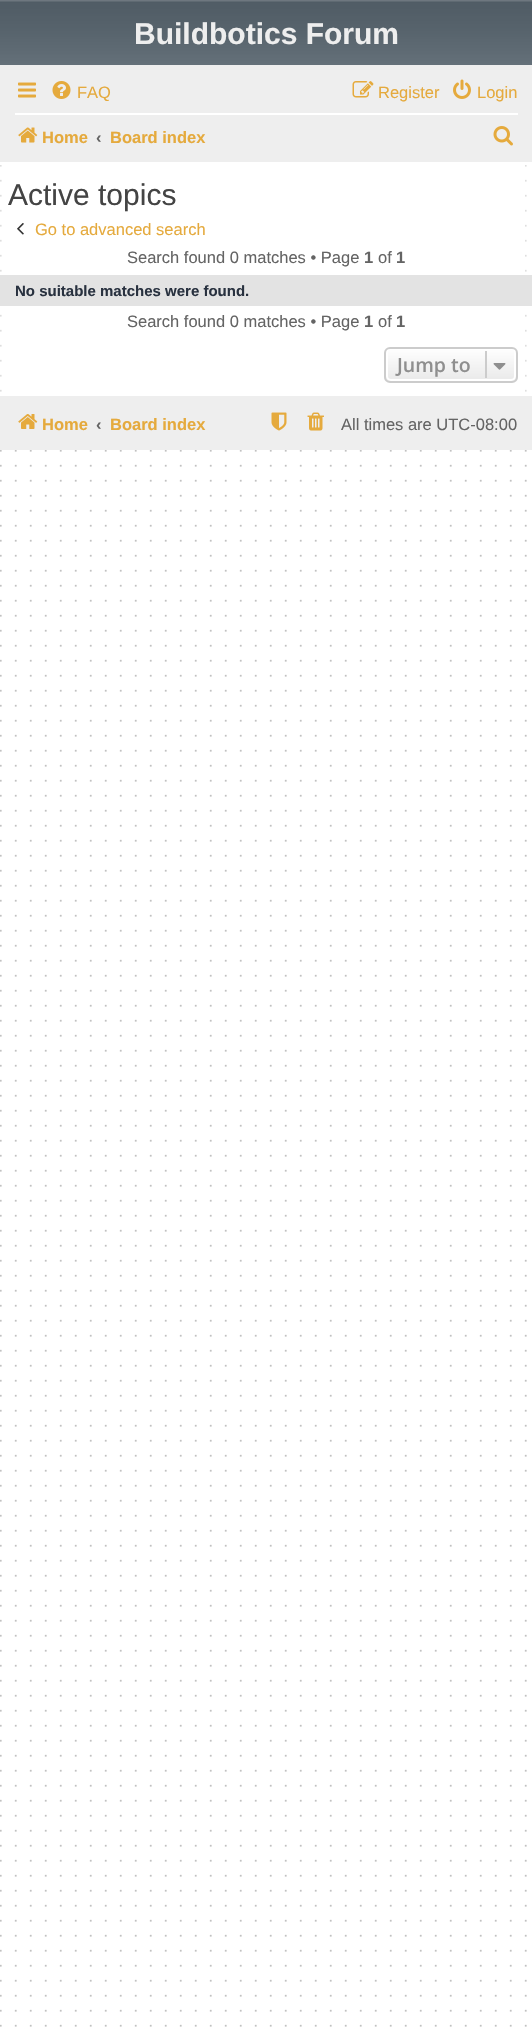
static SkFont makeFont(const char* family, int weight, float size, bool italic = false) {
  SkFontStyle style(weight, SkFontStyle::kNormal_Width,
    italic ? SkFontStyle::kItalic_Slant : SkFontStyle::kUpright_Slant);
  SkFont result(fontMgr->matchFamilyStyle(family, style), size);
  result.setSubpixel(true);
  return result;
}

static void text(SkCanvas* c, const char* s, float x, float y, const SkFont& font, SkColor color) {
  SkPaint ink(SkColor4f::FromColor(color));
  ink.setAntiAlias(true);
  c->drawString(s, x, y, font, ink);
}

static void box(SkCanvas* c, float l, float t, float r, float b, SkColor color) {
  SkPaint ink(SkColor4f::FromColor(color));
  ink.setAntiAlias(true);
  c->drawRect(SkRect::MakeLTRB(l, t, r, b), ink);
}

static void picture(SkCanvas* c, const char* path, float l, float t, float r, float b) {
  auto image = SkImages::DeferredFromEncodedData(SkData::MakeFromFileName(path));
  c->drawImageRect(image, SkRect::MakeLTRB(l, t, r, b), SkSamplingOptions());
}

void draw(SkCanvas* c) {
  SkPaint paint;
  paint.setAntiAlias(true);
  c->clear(0xffffffff);
  picture(c, "img_01.png", 0, 450, 527, 2027);
  picture(c, "img_02.png", 0, 165, 527, 2027);
  box(c, 14, 165, 525, 392, 0xffffffff);
  picture(c, "img_03.png", 0, 0, 532, 65);
  SkFont face1 = makeFont("Liberation Sans", 700, 30);
  text(c, "Buildbotics Forum", 134, 44, face1, 0xffeeeeee);
  box(c, 0, 65, 532, 162, 0xffeeeeee);
  picture(c, "img_04.png", 18, 82, 36, 98);
  picture(c, "img_05.png", 52, 81, 71, 99);
  SkFont face2 = makeFont("Liberation Sans", 400, 16.5f);
  text(c, "FAQ", 77, 98, face2, 0xffe5aa3d);
  picture(c, "img_06.png", 352, 81, 374, 98);
  text(c, "Register", 378, 98, face2, 0xffe5aa3d);
  picture(c, "img_07.png", 453, 79, 471, 99);
  text(c, "Login", 477, 98, face2, 0xffe5aa3d);
  box(c, 15, 113, 518, 115, 0xffffffff);
  picture(c, "img_08.png", 18, 127, 38, 143);
  SkFont face3 = makeFont("Liberation Sans", 700, 16.5f);
  text(c, "Home", 42, 143, face3, 0xffe5aa3d);
  text(c, "‹", 96, 143, face3, 0xff646464);
  text(c, "Board index", 110, 143, face3, 0xffe5aa3d);
  picture(c, "img_09.png", 493, 126, 513, 146);
  SkFont face4 = makeFont("Liberation Sans", 400, 30);
  text(c, "Active topics", 8, 205, face4, 0xff444444);
  picture(c, "img_10.png", 17, 223, 24, 235);
  text(c, "Go to advanced search", 35, 235, face2, 0xffe5aa3d);
  text(c, "Search found 0 matches • Page", 127, 263, face2, 0xff646464);
  text(c, "1", 364, 263, face3, 0xff646464);
  text(c, "of", 378, 263, face2, 0xff646464);
  text(c, "1", 396, 263, face3, 0xff646464);
  box(c, 0, 275, 532, 306, 0xffe3e3e3);
  SkFont face5 = makeFont("Liberation Sans", 700, 15);
  text(c, "No suitable matches were found.", 15, 296, face5, 0xff28313f);
  text(c, "Search found 0 matches • Page", 127, 327, face2, 0xff646464);
  text(c, "1", 364, 327, face3, 0xff646464);
  text(c, "of", 378, 327, face2, 0xff646464);
  text(c, "1", 396, 327, face3, 0xff646464);
  c->save();
  c->clipPath(SkPathBuilder().moveTo(390, 347).lineTo(512, 347).cubicTo(515.5f, 347, 518, 349.5f, 518, 353).lineTo(518, 377).cubicTo(518, 380.5f, 515.5f, 383, 512, 383).lineTo(390, 383).cubicTo(386.5f, 383, 384, 380.5f, 384, 377).lineTo(384, 353).cubicTo(384, 349.5f, 386.5f, 347, 390, 347).close().detach(), true);
  {
    const SkColor colors[] = {0xffffffff, 0xffe9e9e9};
    const float stops[] = {0, 1};
    const SkPoint ends[] = {{451, 348}, {451, 381}};
    paint.setShader(SkGradientShader::MakeLinear(ends, colors, stops, 2, SkTileMode::kClamp));
    paint.setAlpha(255);
  }
  c->drawRect(SkRect::MakeLTRB(384, 348, 518, 381), paint);
  c->restore();
  paint.setStyle(SkPaint::kStroke_Style);
  paint.setStrokeWidth(2);
  paint.setShader(nullptr);
  paint.setColor(0xffffffff);
  c->drawRoundRect(SkRect::MakeLTRB(387, 349, 515, 380), 4, 4, paint);
  paint.setColor(0xffcccccc);
  c->drawRoundRect(SkRect::MakeLTRB(385, 348, 517, 382), 5, 5, paint);
  SkFont face6 = makeFont("Open Sans", 600, 19.5f);
  text(c, "Jump to", 397, 372, face6, 0xff8f8f8f);
  box(c, 485, 351, 487, 378, 0xffcccccc);
  picture(c, "img_11.png", 493, 363, 506, 370);
  box(c, 0, 396, 532, 450, 0xffeeeeee);
  picture(c, "img_12.png", 18, 414, 38, 429);
  text(c, "Home", 42, 430, face3, 0xffe5aa3d);
  text(c, "‹", 96, 430, face3, 0xff646464);
  text(c, "Board index", 110, 430, face3, 0xffe5aa3d);
  picture(c, "img_13.png", 271, 412, 287, 431);
  picture(c, "img_14.png", 307, 412, 324, 431);
  text(c, "All times are UTC-08:00", 341, 430, face2, 0xff646464);
}
